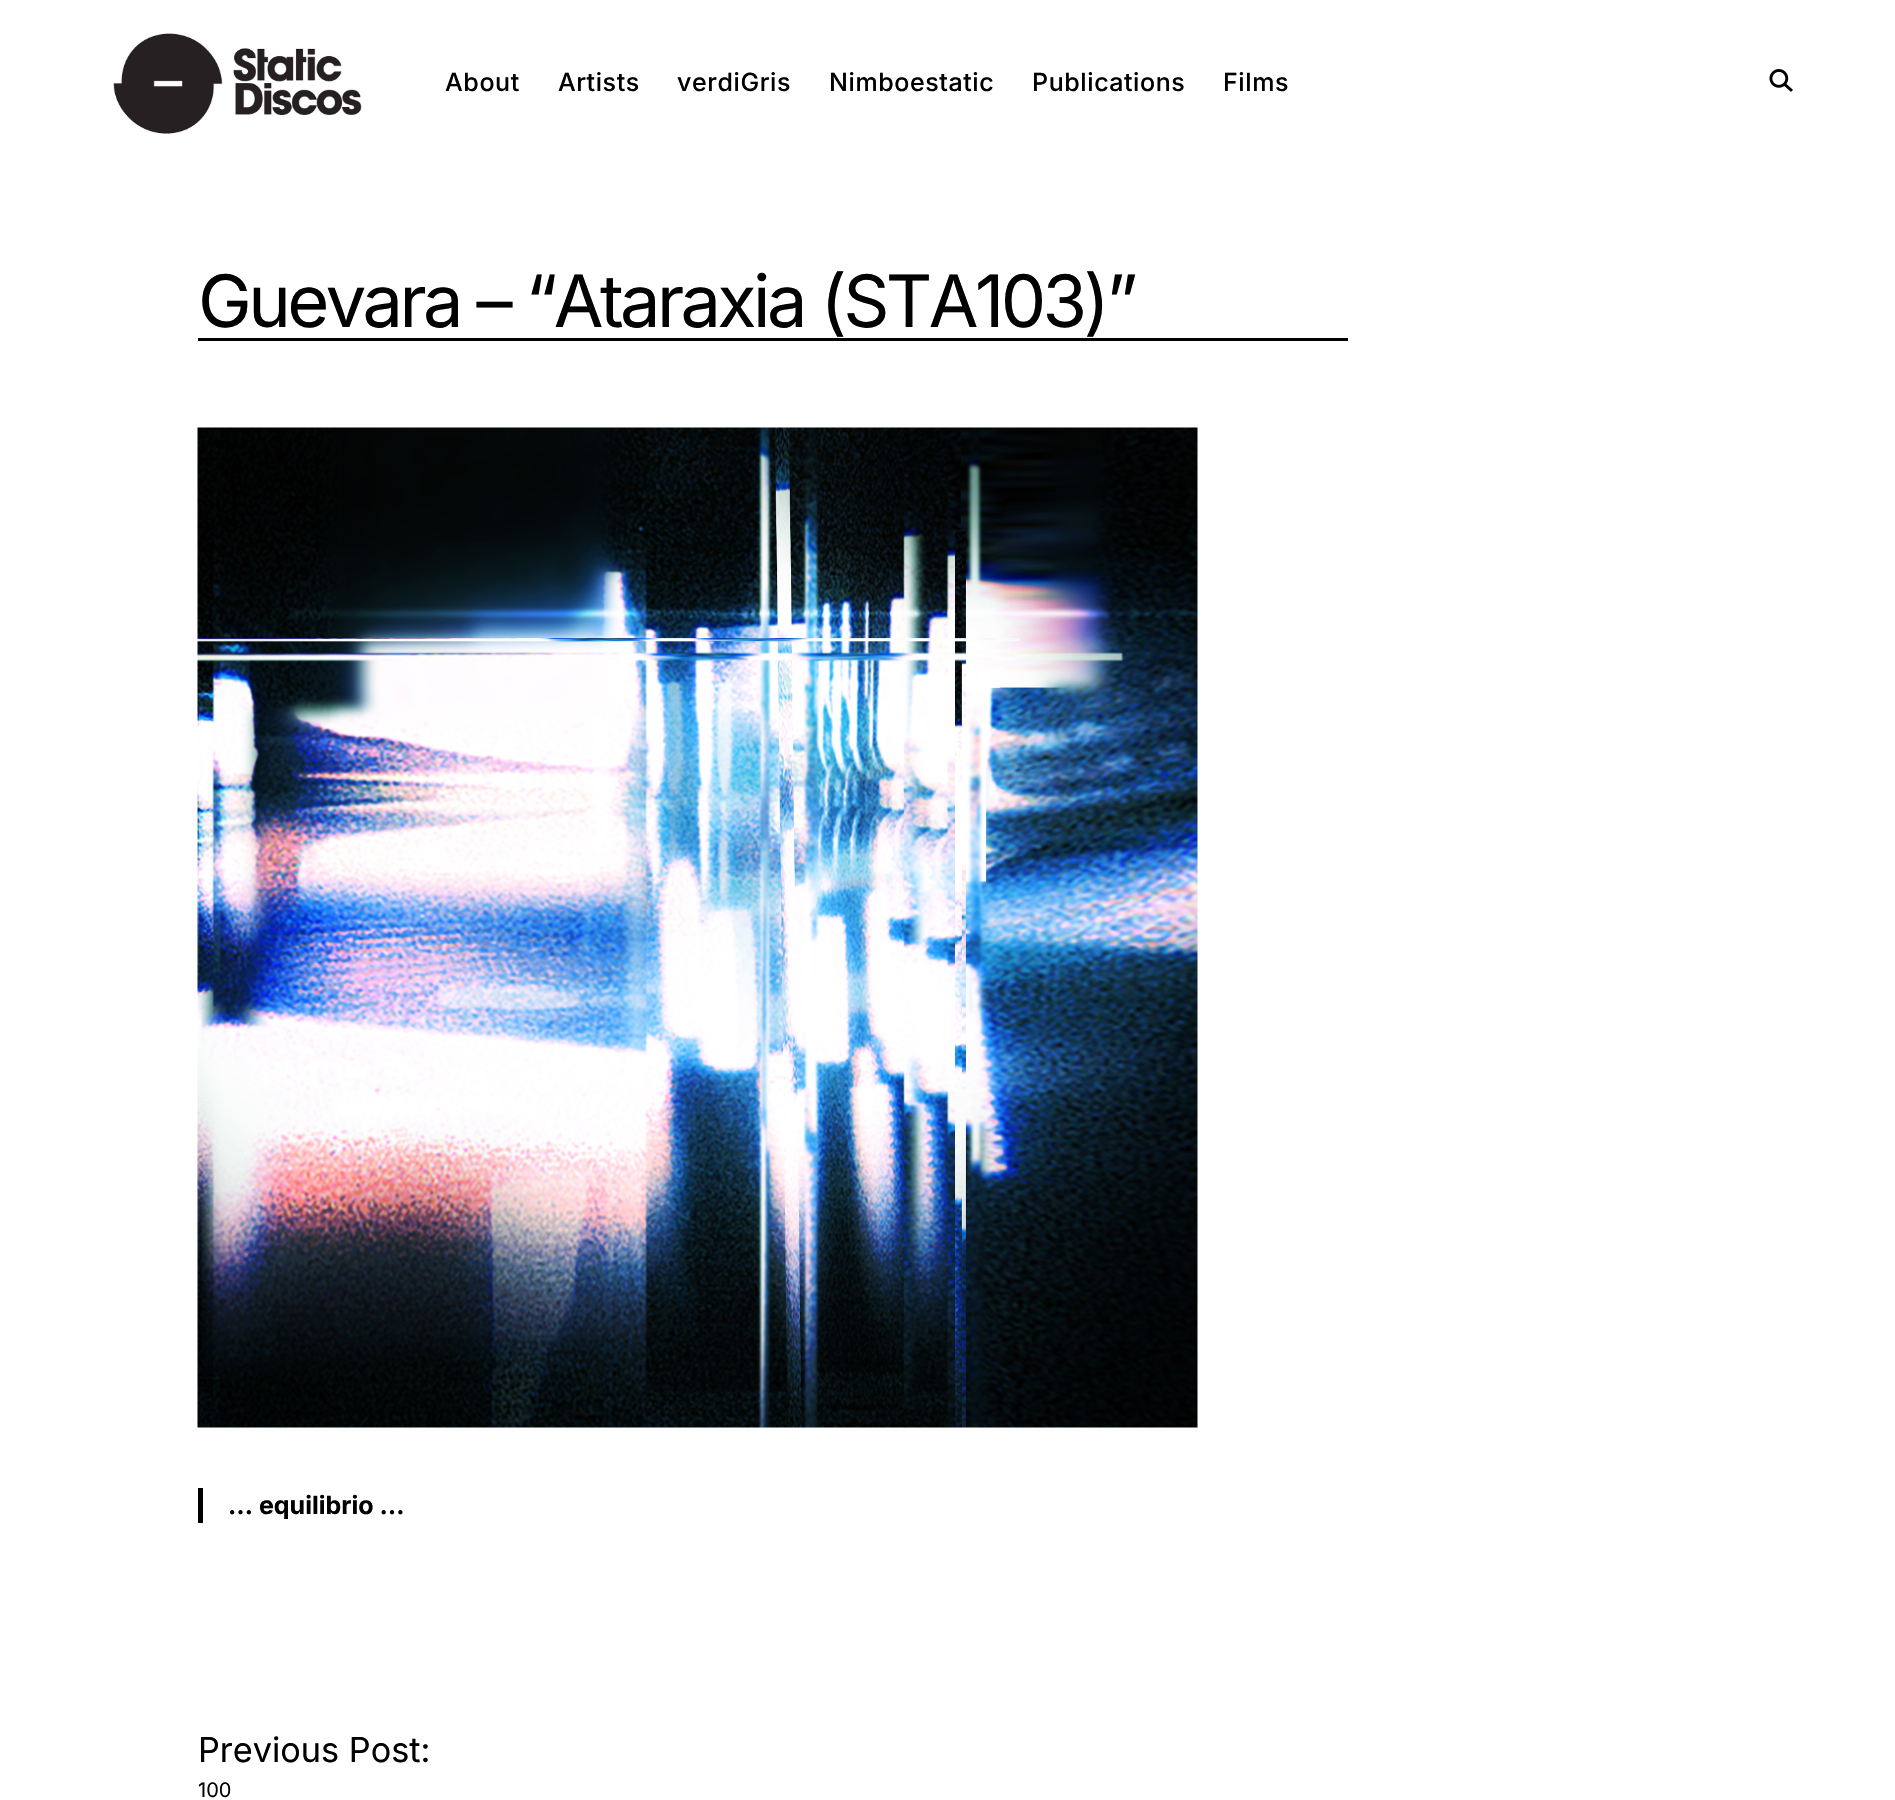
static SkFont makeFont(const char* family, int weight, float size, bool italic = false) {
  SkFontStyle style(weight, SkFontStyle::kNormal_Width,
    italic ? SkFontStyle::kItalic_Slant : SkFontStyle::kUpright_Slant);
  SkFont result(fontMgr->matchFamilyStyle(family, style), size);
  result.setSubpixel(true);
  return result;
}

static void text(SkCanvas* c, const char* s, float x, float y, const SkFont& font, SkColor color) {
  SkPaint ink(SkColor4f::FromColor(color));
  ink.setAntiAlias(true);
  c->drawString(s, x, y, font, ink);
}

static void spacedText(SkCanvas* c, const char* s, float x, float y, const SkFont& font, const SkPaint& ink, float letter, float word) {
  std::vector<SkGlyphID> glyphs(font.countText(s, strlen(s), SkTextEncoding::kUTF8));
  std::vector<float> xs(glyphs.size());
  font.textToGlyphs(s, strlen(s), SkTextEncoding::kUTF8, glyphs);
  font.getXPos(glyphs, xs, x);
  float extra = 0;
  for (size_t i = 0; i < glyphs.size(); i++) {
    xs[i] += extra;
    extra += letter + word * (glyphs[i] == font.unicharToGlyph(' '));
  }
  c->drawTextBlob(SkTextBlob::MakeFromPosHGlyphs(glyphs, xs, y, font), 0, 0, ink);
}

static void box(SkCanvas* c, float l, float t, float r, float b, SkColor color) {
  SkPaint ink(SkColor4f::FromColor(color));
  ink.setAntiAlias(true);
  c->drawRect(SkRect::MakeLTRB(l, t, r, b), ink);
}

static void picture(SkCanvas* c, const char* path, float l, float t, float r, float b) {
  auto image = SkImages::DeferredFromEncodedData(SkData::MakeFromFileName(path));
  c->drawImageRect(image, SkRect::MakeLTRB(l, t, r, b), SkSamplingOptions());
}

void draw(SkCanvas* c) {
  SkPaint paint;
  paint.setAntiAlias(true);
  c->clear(0xffffffff);
  picture(c, "img_01.png", 113, 33, 362, 134);
  SkFont face1 = makeFont("Inter", 500, 25);
  paint.setColor(0xff000000);
  spacedText(c, "About", 445, 91, face1, paint, 0.6f, 0);
  spacedText(c, "Artists", 558, 91, face1, paint, 0.6f, 0);
  spacedText(c, "verdiGris", 677, 91, face1, paint, 0.6f, 0);
  spacedText(c, "Nimboestatic", 829, 91, face1, paint, 0.6f, 0);
  spacedText(c, "Publications", 1032, 91, face1, paint, 0.6f, 0);
  spacedText(c, "Films", 1223, 91, face1, paint, 0.6f, 0);
  picture(c, "img_02.png", 1769, 69, 1793, 92);
  box(c, 198, 338, 1348, 341, 0xff000000);
  SkFont face2 = makeFont("Inter", 400, 72.1f);
  spacedText(c, "Guevara – “Ataraxia (STA103)”", 198, 327, face2, paint, -3.6f, 0);
  picture(c, "img_03.png", 197, 427, 1198, 1428);
  box(c, 198, 1488, 203, 1523, 0xff000000);
  SkFont face3 = makeFont("Inter", 700, 25);
  text(c, "… equilibrio …", 228, 1514, face3, 0xff000000);
  SkFont face4 = makeFont("Inter", 400, 34.25f);
  text(c, "Previous Post:", 198, 1762, face4, 0xff000000);
  SkFont face5 = makeFont("Inter", 400, 20);
  text(c, "100", 198, 1797, face5, 0xff000000);
}
